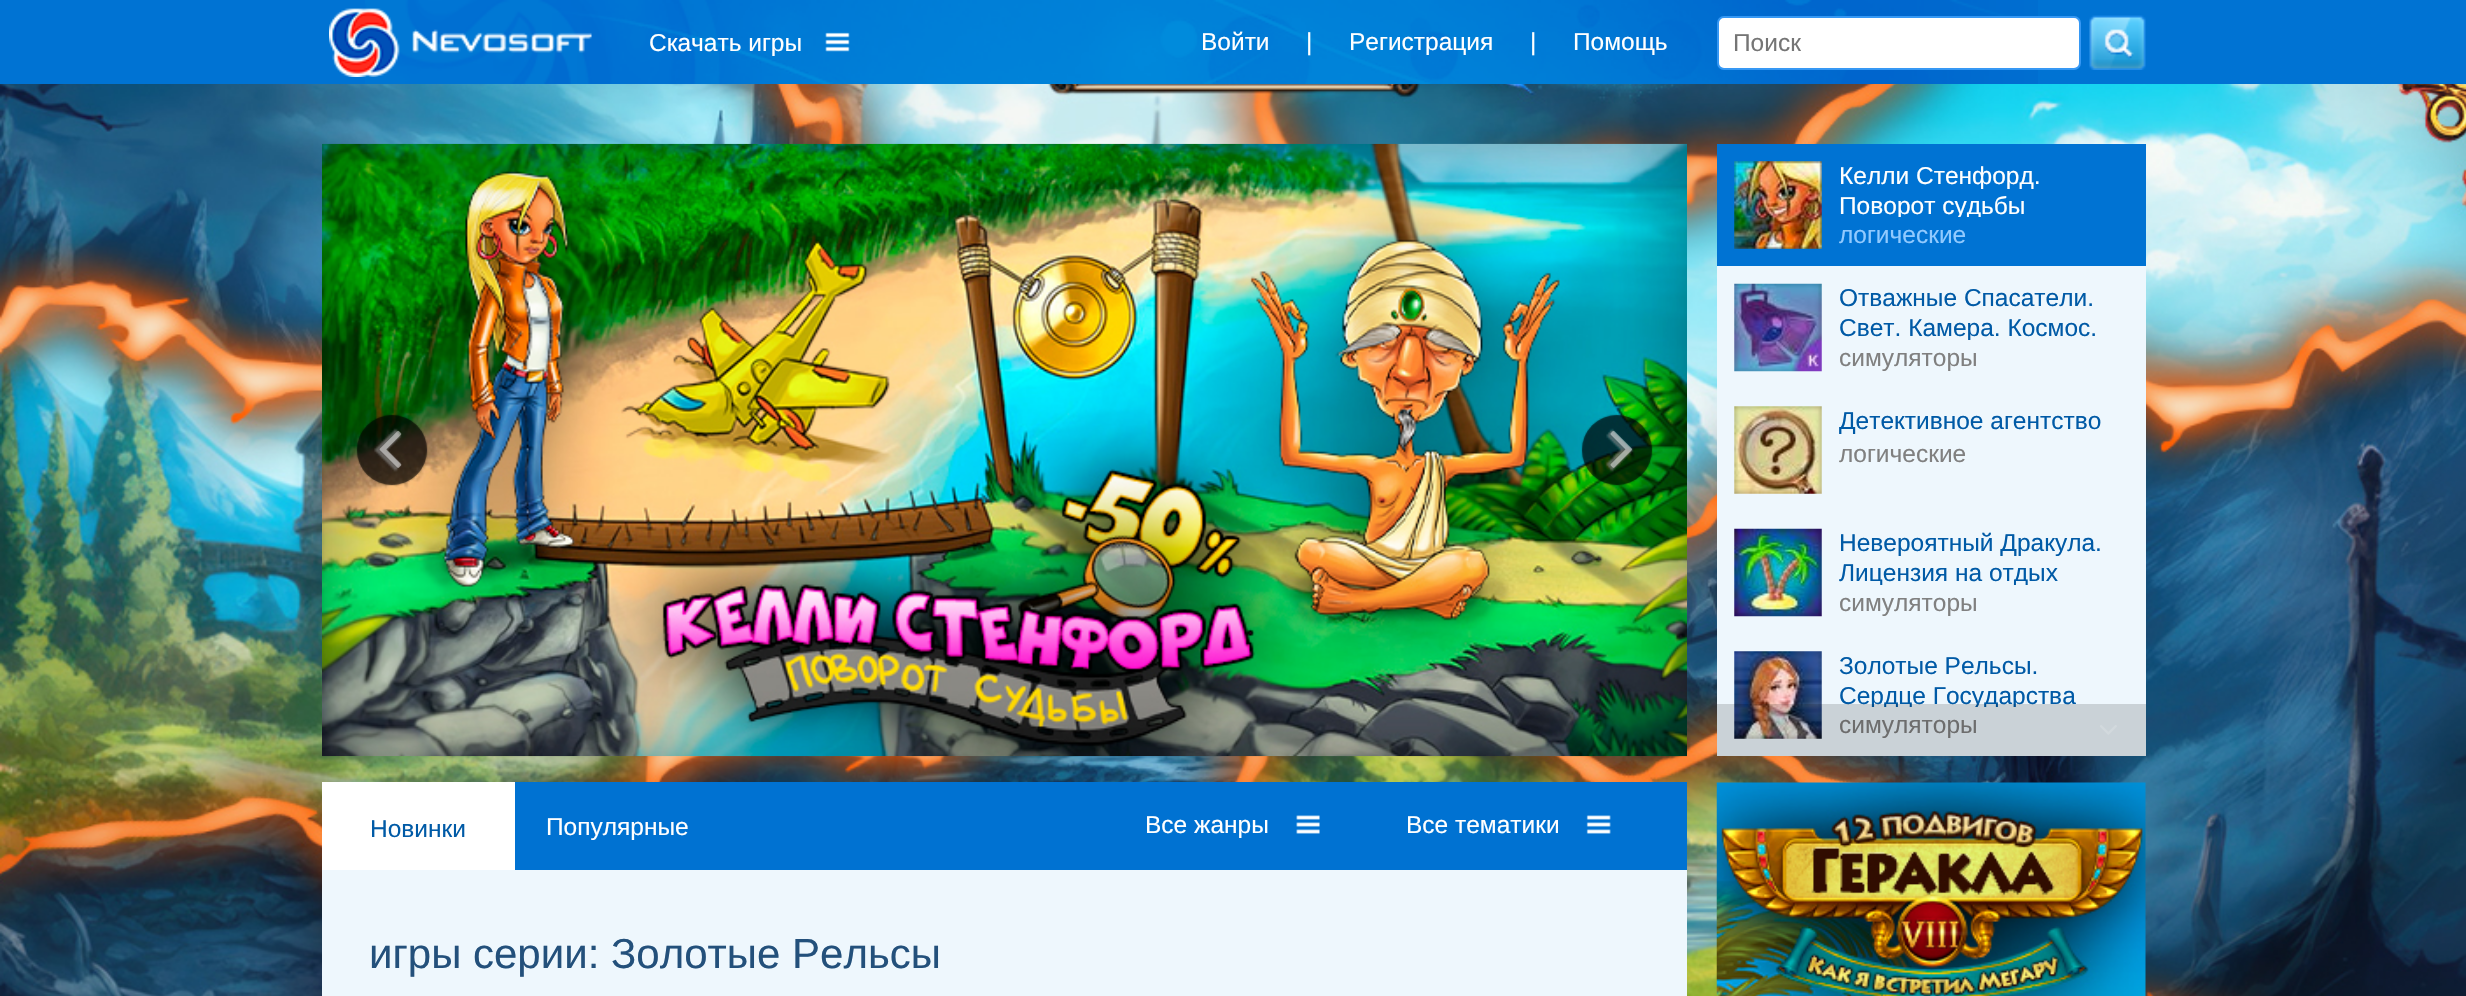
static SkFont makeFont(const char* family, int weight, float size, bool italic = false) {
  SkFontStyle style(weight, SkFontStyle::kNormal_Width,
    italic ? SkFontStyle::kItalic_Slant : SkFontStyle::kUpright_Slant);
  SkFont result(fontMgr->matchFamilyStyle(family, style), size);
  result.setSubpixel(true);
  return result;
}

static void text(SkCanvas* c, const char* s, float x, float y, const SkFont& font, SkColor color) {
  SkPaint ink(SkColor4f::FromColor(color));
  ink.setAntiAlias(true);
  c->drawString(s, x, y, font, ink);
}

static void box(SkCanvas* c, float l, float t, float r, float b, SkColor color) {
  SkPaint ink(SkColor4f::FromColor(color));
  ink.setAntiAlias(true);
  c->drawRect(SkRect::MakeLTRB(l, t, r, b), ink);
}

static void picture(SkCanvas* c, const char* path, float l, float t, float r, float b) {
  auto image = SkImages::DeferredFromEncodedData(SkData::MakeFromFileName(path));
  c->drawImageRect(image, SkRect::MakeLTRB(l, t, r, b), SkSamplingOptions());
}

void draw(SkCanvas* c) {
  SkPaint paint;
  paint.setAntiAlias(true);
  c->clear(0xffffffff);
  box(c, 0, 0, 2466, 84, 0xff0073d3);
  picture(c, "img_01.png", 365, 0, 2038, 84);
  picture(c, "img_02.png", 329, 8, 592, 77);
  picture(c, "img_03.png", 825, 32, 850, 52);
  SkFont face1 = makeFont("Liberation Sans", 400, 24.5f);
  text(c, "Скачать игры", 649, 51, face1, 0xffffffff);
  text(c, "Войти", 1201, 50, face1, 0xffffffff);
  text(c, "|", 1306, 50, face1, 0xffffffff);
  text(c, "Регистрация", 1349, 50, face1, 0xffffffff);
  text(c, "|", 1530, 50, face1, 0xffffffff);
  text(c, "Помощь", 1573, 50, face1, 0xffffffff);
  paint.setColor(0xffffffff);
  c->drawRoundRect(SkRect::MakeLTRB(1718, 17, 2080, 69), 6, 6, paint);
  paint.setStyle(SkPaint::kStroke_Style);
  paint.setStrokeWidth(2);
  paint.setColor(0xff3698f4);
  c->drawRoundRect(SkRect::MakeLTRB(1718, 17, 2080, 69), 6, 6, paint);
  text(c, "Поиск", 1733, 51, face1, 0xff757575);
  picture(c, "img_04.png", 2089, 15, 2146, 70);
  picture(c, "img_05.png", 0, 84, 2466, 996);
  picture(c, "img_06.png", 322, 143, 1687, 757);
  paint.setStyle(SkPaint::kFill_Style);
  paint.setColor(0x73000000);
  c->drawCircle(392, 450, 35, paint);
  picture(c, "img_07.png", 379, 430, 402, 468);
  c->drawCircle(1617, 450, 35, paint);
  picture(c, "img_08.png", 1610, 430, 1632, 468);
  box(c, 1717, 266, 2146, 756, 0xffeef7fd);
  box(c, 1717, 144, 2146, 266, 0xff0073d3);
  picture(c, "img_09.png", 1734, 161, 1822, 249);
  text(c, "Келли Стенфорд.", 1839, 184, face1, 0xffffffff);
  c->save();
  c->clipRect(SkRect::MakeLTRB(1839, 161, 2111, 217));
  text(c, "Поворот судьбы", 1839, 214, face1, 0xffffffff);
  c->restore();
  text(c, "логические", 1839, 243, face1, 0xff91caff);
  picture(c, "img_10.png", 1734, 283, 1822, 372);
  text(c, "Отважные Спасатели.", 1839, 306, face1, 0xff005aa6);
  c->save();
  c->clipRect(SkRect::MakeLTRB(1839, 284, 2111, 340));
  text(c, "Свет. Камера. Космос.", 1839, 336, face1, 0xff005aa6);
  c->restore();
  text(c, "симуляторы", 1839, 366, face1, 0xff808080);
  picture(c, "img_11.png", 1734, 406, 1822, 494);
  text(c, "Детективное агентство", 1839, 429, face1, 0xff005aa6);
  text(c, "логические", 1839, 462, face1, 0xff808080);
  picture(c, "img_12.png", 1734, 528, 1822, 617);
  text(c, "Невероятный Дракула.", 1839, 551, face1, 0xff005aa6);
  c->save();
  c->clipRect(SkRect::MakeLTRB(1839, 529, 2111, 585));
  text(c, "Лицензия на отдых", 1839, 581, face1, 0xff005aa6);
  c->restore();
  text(c, "симуляторы", 1839, 611, face1, 0xff808080);
  picture(c, "img_13.png", 1734, 651, 1822, 739);
  text(c, "Золотые Рельсы.", 1839, 674, face1, 0xff005aa6);
  c->save();
  c->clipRect(SkRect::MakeLTRB(1839, 651, 2111, 707));
  text(c, "Сердце Государства", 1839, 704, face1, 0xff005aa6);
  c->restore();
  text(c, "симуляторы", 1839, 733, face1, 0xff808080);
  box(c, 1717, 704, 2146, 756, 0x26000000);
  picture(c, "img_14.png", 2100, 725, 2117, 735);
  box(c, 515, 782, 1687, 870, 0xff0072d2);
  box(c, 322, 782, 515, 870, 0xffffffff);
  text(c, "Новинки", 370, 837, face1, 0xff005aa6);
  text(c, "Популярные", 546, 835, face1, 0xffffffff);
  text(c, "Все жанры", 1145, 833, face1, 0xffffffff);
  picture(c, "img_15.png", 1296, 815, 1320, 834);
  text(c, "Все тематики", 1406, 833, face1, 0xffffffff);
  picture(c, "img_16.png", 1586, 815, 1611, 834);
  box(c, 322, 870, 1687, 996, 0xffeef7fd);
  SkFont face2 = makeFont("Liberation Sans", 400, 42);
  text(c, "игры серии: Золотые Рельсы", 369, 968, face2, 0xff23507b);
  picture(c, "img_17.png", 1716, 782, 2146, 996);
}
